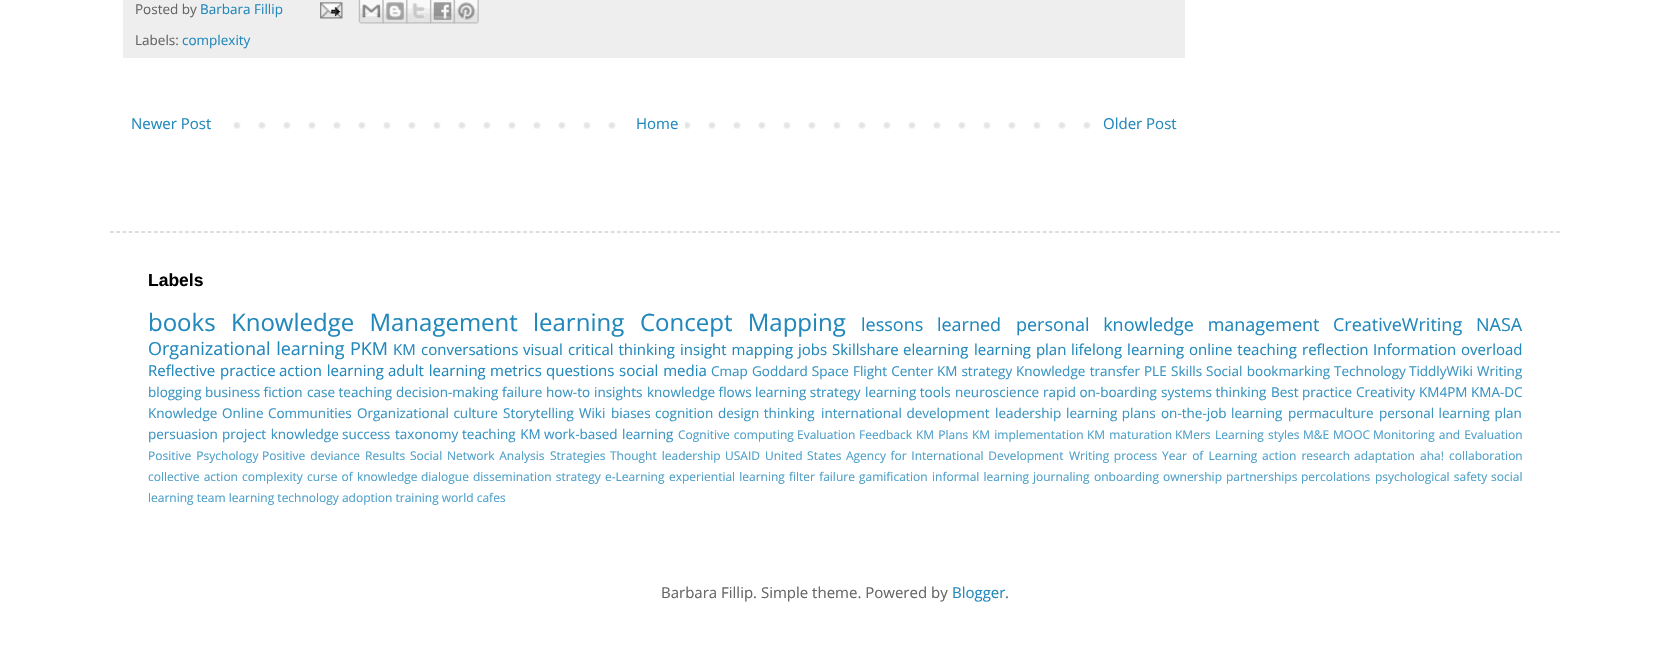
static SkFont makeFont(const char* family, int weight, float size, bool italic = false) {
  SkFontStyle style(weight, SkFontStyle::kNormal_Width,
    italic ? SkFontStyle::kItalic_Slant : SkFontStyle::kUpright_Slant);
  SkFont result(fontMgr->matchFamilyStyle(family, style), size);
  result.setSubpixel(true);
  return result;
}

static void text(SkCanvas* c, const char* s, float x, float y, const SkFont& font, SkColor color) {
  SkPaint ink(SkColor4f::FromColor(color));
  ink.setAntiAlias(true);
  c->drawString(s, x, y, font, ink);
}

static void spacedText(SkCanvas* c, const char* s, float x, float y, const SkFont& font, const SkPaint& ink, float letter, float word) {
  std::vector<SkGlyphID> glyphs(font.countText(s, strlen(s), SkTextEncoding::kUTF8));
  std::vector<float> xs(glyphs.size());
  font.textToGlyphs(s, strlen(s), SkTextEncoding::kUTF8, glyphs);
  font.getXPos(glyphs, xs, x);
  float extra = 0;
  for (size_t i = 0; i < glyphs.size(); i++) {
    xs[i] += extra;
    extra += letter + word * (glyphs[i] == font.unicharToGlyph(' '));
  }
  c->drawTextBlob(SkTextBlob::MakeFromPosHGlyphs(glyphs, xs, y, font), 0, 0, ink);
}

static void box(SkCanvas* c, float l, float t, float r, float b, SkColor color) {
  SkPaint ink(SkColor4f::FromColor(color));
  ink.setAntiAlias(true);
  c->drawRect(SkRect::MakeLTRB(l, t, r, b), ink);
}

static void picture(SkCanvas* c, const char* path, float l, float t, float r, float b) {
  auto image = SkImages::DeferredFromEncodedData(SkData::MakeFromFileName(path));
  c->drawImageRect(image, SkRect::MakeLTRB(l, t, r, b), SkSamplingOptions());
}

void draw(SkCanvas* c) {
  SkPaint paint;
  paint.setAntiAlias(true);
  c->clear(0xffffffff);
  box(c, 123, 0, 1185, 58, 0xffeeeeee);
  SkFont face1 = makeFont("Open Sans", 400, 13.5f);
  text(c, "Posted by", 135, 14, face1, 0xff666666);
  text(c, "Barbara Fillip", 200, 14, face1, 0xff2288bb);
  picture(c, "img_01.png", 320, 2, 343, 19);
  picture(c, "img_02.png", 358, 0, 384, 24);
  picture(c, "img_03.png", 382, 0, 408, 24);
  picture(c, "img_04.png", 406, 0, 432, 24);
  picture(c, "img_05.png", 430, 0, 455, 24);
  picture(c, "img_06.png", 453, 0, 479, 24);
  text(c, "Labels:", 135, 45, face1, 0xff666666);
  text(c, "complexity", 182, 45, face1, 0xff2288bb);
  picture(c, "img_07.png", 233, 122, 1091, 129);
  SkFont face2 = makeFont("Open Sans", 400, 15);
  text(c, "Newer Post", 131, 129, face2, 0xff2288bb);
  box(c, 633, 122, 685, 129, 0xffffffff);
  text(c, "Home", 636, 129, face2, 0xff2288bb);
  text(c, "Older Post", 1103, 129, face2, 0xff2288bb);
  paint.setStyle(SkPaint::kStroke_Style);
  paint.setStrokeWidth(1.2f);
  paint.setColor(0xffbbbbbb);
  paint.setPathEffect(SkDashPathEffect::Make({{3.75f, 2.51f}}, 0));
  c->drawPath(SkPathBuilder().moveTo(110, 232).lineTo(1560, 232).detach(), paint);
  paint.setPathEffect(nullptr);
  SkFont face3 = makeFont("Liberation Sans", 700, 17.5f);
  text(c, "Labels", 148, 286, face3, 0xff000000);
  SkFont face4 = makeFont("Open Sans", 400, 24);
  text(c, "books", 148, 331, face4, 0xff2288bb);
  paint.setStyle(SkPaint::kFill_Style);
  paint.setColor(0xff2288bb);
  spacedText(c, "Knowledge Management", 231, 331, face4, paint, 0, 9);
  text(c, "learning", 533, 331, face4, 0xff2288bb);
  spacedText(c, "Concept Mapping", 640, 331, face4, paint, 0, 9);
  SkFont face5 = makeFont("Open Sans", 400, 18);
  spacedText(c, "lessons learned", 861, 331, face5, paint, 0, 9);
  spacedText(c, "personal knowledge management", 1016, 331, face5, paint, 0, 9);
  text(c, "CreativeWriting", 1333, 331, face5, 0xff2288bb);
  text(c, "NASA", 1476, 331, face5, 0xff2288bb);
  spacedText(c, "Organizational learning", 148, 355, face5, paint, 0, 1);
  text(c, "PKM", 350, 355, face5, 0xff2288bb);
  text(c, "KM", 393, 355, face2, 0xff2288bb);
  text(c, "conversations", 421, 355, face2, 0xff2288bb);
  text(c, "visual", 523, 355, face2, 0xff2288bb);
  spacedText(c, "critical thinking", 568, 355, face2, paint, 0, 1);
  spacedText(c, "insight mapping", 680, 355, face2, paint, 0, 1);
  text(c, "jobs", 798, 355, face2, 0xff2288bb);
  text(c, "Skillshare", 832, 355, face2, 0xff2288bb);
  text(c, "elearning", 903, 355, face2, 0xff2288bb);
  spacedText(c, "learning plan", 974, 355, face2, paint, 0, 1);
  spacedText(c, "lifelong learning", 1071, 355, face2, paint, 0, 1);
  spacedText(c, "online teaching", 1189, 355, face2, paint, 0, 1);
  text(c, "reflection", 1302, 355, face2, 0xff2288bb);
  spacedText(c, "Information overload", 1373, 355, face2, paint, 0, 1);
  spacedText(c, "Reflective practice", 148, 376, face2, paint, 0, 1);
  spacedText(c, "action learning", 279, 376, face2, paint, 0, 1);
  spacedText(c, "adult learning", 388, 376, face2, paint, 0, 1);
  text(c, "metrics", 490, 376, face2, 0xff2288bb);
  text(c, "questions", 546, 376, face2, 0xff2288bb);
  spacedText(c, "social media", 619, 376, face2, paint, 0, 1);
  text(c, "Cmap", 711, 376, face1, 0xff3894c2);
  paint.setColor(0xff3894c2);
  spacedText(c, "Goddard Space Flight Center", 752, 376, face1, paint, 0, 0.5f);
  spacedText(c, "KM strategy", 937, 376, face1, paint, 0, 0.5f);
  spacedText(c, "Knowledge transfer", 1016, 376, face1, paint, 0, 1);
  text(c, "PLE", 1144, 376, face1, 0xff3894c2);
  text(c, "Skills", 1171, 376, face1, 0xff3894c2);
  spacedText(c, "Social bookmarking", 1206, 376, face1, paint, 0, 1);
  text(c, "Technology", 1334, 376, face1, 0xff3894c2);
  text(c, "TiddlyWiki", 1409, 376, face1, 0xff3894c2);
  text(c, "Writing", 1477, 376, face1, 0xff3894c2);
  text(c, "blogging", 148, 397, face1, 0xff3894c2);
  text(c, "business fiction", 205, 397, face1, 0xff3894c2);
  text(c, "case teaching", 307, 397, face1, 0xff3894c2);
  text(c, "decision-making", 396, 397, face1, 0xff3894c2);
  text(c, "failure", 502, 397, face1, 0xff3894c2);
  text(c, "how-to", 546, 397, face1, 0xff3894c2);
  text(c, "insights", 594, 397, face1, 0xff3894c2);
  text(c, "knowledge flows", 647, 397, face1, 0xff3894c2);
  text(c, "learning strategy", 755, 397, face1, 0xff3894c2);
  text(c, "learning tools", 865, 397, face1, 0xff3894c2);
  text(c, "neuroscience", 955, 397, face1, 0xff3894c2);
  text(c, "rapid on-boarding", 1043, 397, face1, 0xff3894c2);
  text(c, "systems thinking", 1161, 397, face1, 0xff3894c2);
  text(c, "Best practice", 1271, 397, face1, 0xff3894c2);
  text(c, "Creativity", 1356, 397, face1, 0xff3894c2);
  text(c, "KM4PM", 1419, 397, face1, 0xff3894c2);
  text(c, "KMA-DC", 1471, 397, face1, 0xff3894c2);
  text(c, "Knowledge", 148, 418, face1, 0xff3894c2);
  spacedText(c, "Online Communities", 222, 418, face1, paint, 0, 1);
  spacedText(c, "Organizational culture", 357, 418, face1, paint, 0, 1);
  text(c, "Storytelling", 503, 418, face1, 0xff3894c2);
  text(c, "Wiki", 579, 418, face1, 0xff3894c2);
  text(c, "biases", 611, 418, face1, 0xff3894c2);
  text(c, "cognition", 655, 418, face1, 0xff3894c2);
  spacedText(c, "design thinking", 718, 418, face1, paint, 0, 1);
  spacedText(c, "international development", 821, 418, face1, paint, 0, 1);
  text(c, "leadership", 995, 418, face1, 0xff3894c2);
  spacedText(c, "learning plans", 1066, 418, face1, paint, 0, 1);
  spacedText(c, "on-the-job learning", 1161, 418, face1, paint, 0, 1);
  text(c, "permaculture", 1288, 418, face1, 0xff3894c2);
  spacedText(c, "personal learning plan", 1379, 418, face1, paint, 0, 1);
  text(c, "persuasion", 148, 439, face1, 0xff3894c2);
  spacedText(c, "project knowledge", 222, 439, face1, paint, 0, 1);
  text(c, "success", 342, 439, face1, 0xff3894c2);
  text(c, "taxonomy", 395, 439, face1, 0xff3894c2);
  spacedText(c, "teaching KM", 462, 439, face1, paint, 0, 1);
  spacedText(c, "work-based learning", 544, 439, face1, paint, 0, 1);
  SkFont face6 = makeFont("Open Sans", 400, 12);
  paint.setColor(0xff4ea0c9);
  spacedText(c, "Cognitive computing", 678, 439, face6, paint, 0, 1);
  text(c, "Evaluation", 797, 439, face6, 0xff4ea0c9);
  text(c, "Feedback", 859, 439, face6, 0xff4ea0c9);
  spacedText(c, "KM Plans", 916, 439, face6, paint, 0, 1);
  spacedText(c, "KM implementation", 972, 439, face6, paint, 0, 1);
  spacedText(c, "KM maturation", 1087, 439, face6, paint, 0, 1);
  text(c, "KMers", 1175, 439, face6, 0xff4ea0c9);
  spacedText(c, "Learning styles", 1215, 439, face6, paint, 0, 1);
  text(c, "M&E", 1303, 439, face6, 0xff4ea0c9);
  text(c, "MOOC", 1333, 439, face6, 0xff4ea0c9);
  spacedText(c, "Monitoring and Evaluation", 1373, 439, face6, paint, 0, 1);
  spacedText(c, "Positive Psychology", 148, 460, face6, paint, 0, 2);
  spacedText(c, "Positive deviance", 262, 460, face6, paint, 0, 2);
  text(c, "Results", 365, 460, face6, 0xff4ea0c9);
  spacedText(c, "Social Network Analysis", 410, 460, face6, paint, 0, 1.5f);
  text(c, "Strategies", 550, 460, face6, 0xff4ea0c9);
  spacedText(c, "Thought leadership", 610, 460, face6, paint, 0, 2);
  text(c, "USAID", 725, 460, face6, 0xff4ea0c9);
  spacedText(c, "United States Agency for International Development", 765, 460, face6, paint, 0, 1.5f);
  spacedText(c, "Writing process", 1069, 460, face6, paint, 0, 1.5f);
  spacedText(c, "Year of Learning", 1162, 460, face6, paint, 0, 2);
  spacedText(c, "action research", 1262, 460, face6, paint, 0, 2);
  text(c, "adaptation", 1354, 460, face6, 0xff4ea0c9);
  text(c, "aha!", 1420, 460, face6, 0xff4ea0c9);
  text(c, "collaboration", 1449, 460, face6, 0xff4ea0c9);
  spacedText(c, "collective action", 148, 481, face6, paint, 0, 1);
  text(c, "complexity", 242, 481, face6, 0xff4ea0c9);
  spacedText(c, "curse of knowledge", 307, 481, face6, paint, 0, 1);
  text(c, "dialogue", 421, 481, face6, 0xff4ea0c9);
  spacedText(c, "dissemination strategy", 473, 481, face6, paint, 0, 1);
  text(c, "e-Learning", 605, 481, face6, 0xff4ea0c9);
  spacedText(c, "experiential learning", 669, 481, face6, paint, 0, 1);
  spacedText(c, "filter failure", 789, 481, face6, paint, 0, 1);
  text(c, "gamification", 859, 481, face6, 0xff4ea0c9);
  spacedText(c, "informal learning", 932, 481, face6, paint, 0, 1);
  text(c, "journaling", 1033, 481, face6, 0xff4ea0c9);
  text(c, "onboarding", 1094, 481, face6, 0xff4ea0c9);
  text(c, "ownership", 1163, 481, face6, 0xff4ea0c9);
  text(c, "partnerships", 1226, 481, face6, 0xff4ea0c9);
  text(c, "percolations", 1301, 481, face6, 0xff4ea0c9);
  spacedText(c, "psychological safety", 1375, 481, face6, paint, 0, 1);
  text(c, "social", 1491, 481, face6, 0xff4ea0c9);
  text(c, "learning team learning technology adoption training world cafes", 148, 502, face6, 0xff4ea0c9);
  text(c, "Barbara Fillip. Simple theme. Powered by", 661, 598, face2, 0xff666666);
  text(c, "Blogger", 952, 598, face2, 0xff2288bb);
  text(c, ".", 1005, 598, face2, 0xff666666);
}
